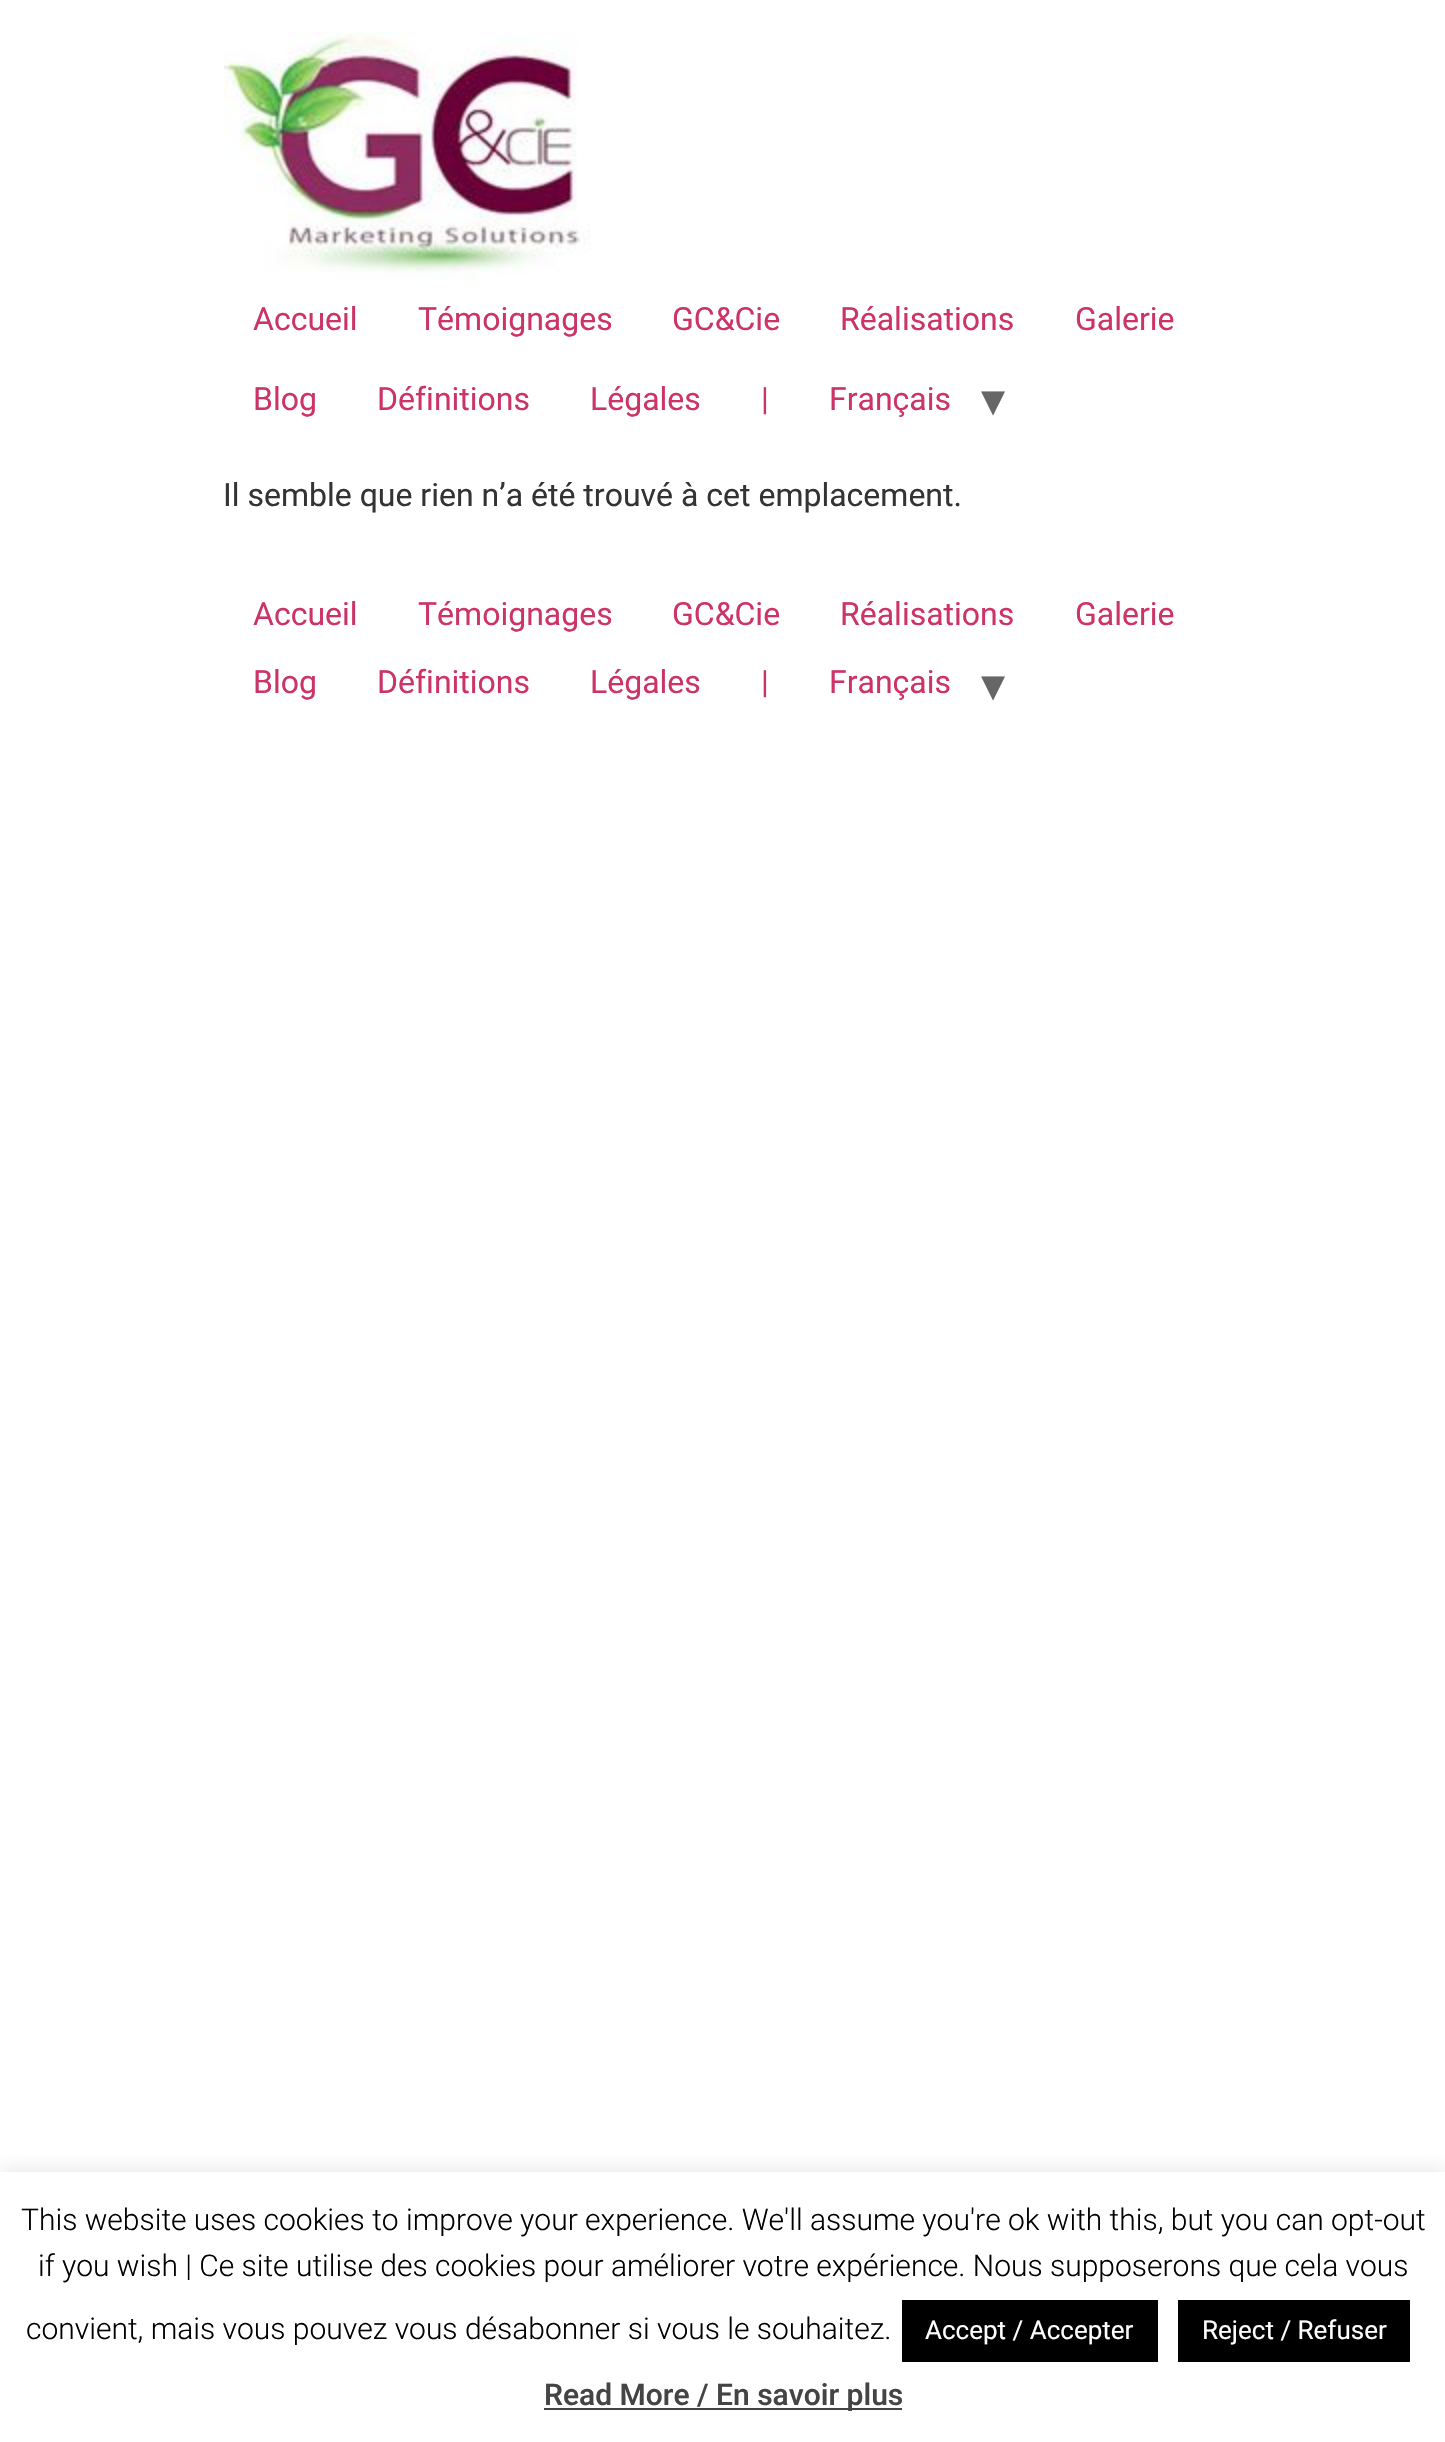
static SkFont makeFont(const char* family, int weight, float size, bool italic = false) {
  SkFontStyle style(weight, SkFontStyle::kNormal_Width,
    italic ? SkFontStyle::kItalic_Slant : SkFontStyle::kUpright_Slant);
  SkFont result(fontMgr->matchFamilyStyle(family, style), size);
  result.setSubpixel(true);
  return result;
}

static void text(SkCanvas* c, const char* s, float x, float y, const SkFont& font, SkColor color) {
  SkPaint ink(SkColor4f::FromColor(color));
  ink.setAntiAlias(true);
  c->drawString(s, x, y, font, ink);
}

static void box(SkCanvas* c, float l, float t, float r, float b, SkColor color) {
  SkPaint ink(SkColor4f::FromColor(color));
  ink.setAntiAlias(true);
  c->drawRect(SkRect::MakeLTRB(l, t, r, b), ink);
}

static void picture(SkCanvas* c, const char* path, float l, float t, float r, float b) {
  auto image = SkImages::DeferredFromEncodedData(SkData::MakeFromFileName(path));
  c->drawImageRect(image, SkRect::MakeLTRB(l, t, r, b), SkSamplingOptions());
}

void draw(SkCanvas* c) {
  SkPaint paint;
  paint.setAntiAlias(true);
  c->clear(0xffffffff);
  picture(c, "img_01.png", 224, 32, 591, 280);
  SkFont face1 = makeFont("Roboto", 400, 32);
  text(c, "Accueil", 253, 330, face1, 0xffcc3366);
  text(c, "Témoignages", 418, 330, face1, 0xffcc3366);
  text(c, "GC&Cie", 672, 330, face1, 0xffcc3366);
  text(c, "Réalisations", 840, 330, face1, 0xffcc3366);
  text(c, "Galerie", 1075, 330, face1, 0xffcc3366);
  text(c, "Blog", 253, 410, face1, 0xffcc3366);
  text(c, "Définitions", 377, 410, face1, 0xffcc3366);
  text(c, "Légales", 590, 410, face1, 0xffcc3366);
  text(c, "|", 761, 410, face1, 0xffcc3366);
  text(c, "Français", 829, 410, face1, 0xffcc3366);
  SkFont face2 = makeFont("DejaVu Sans", 400, 48);
  text(c, "▾", 981, 416, face2, 0xff666666);
  text(c, "Il semble que rien n’a été trouvé à cet emplacement.", 223, 506, face1, 0xff333333);
  text(c, "Accueil", 253, 625, face1, 0xffcc3366);
  text(c, "Témoignages", 418, 625, face1, 0xffcc3366);
  text(c, "GC&Cie", 672, 625, face1, 0xffcc3366);
  text(c, "Réalisations", 840, 625, face1, 0xffcc3366);
  text(c, "Galerie", 1075, 625, face1, 0xffcc3366);
  text(c, "Blog", 253, 693, face1, 0xffcc3366);
  text(c, "Définitions", 377, 693, face1, 0xffcc3366);
  text(c, "Légales", 590, 693, face1, 0xffcc3366);
  text(c, "|", 761, 693, face1, 0xffcc3366);
  text(c, "Français", 829, 693, face1, 0xffcc3366);
  text(c, "▾", 981, 701, face2, 0xff666666);
  c->save();
  c->clipRect(SkRect::MakeLTRB(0, 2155, 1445, 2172));
  paint.setColor(0x4dacabab);
  paint.setMaskFilter(SkMaskFilter::MakeBlur(kNormal_SkBlurStyle, 10));
  c->drawRect(SkRect::MakeLTRB(0, 2170, 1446, 2440), paint);
  paint.setMaskFilter(nullptr);
  c->restore();
  SkFont face3 = makeFont("Roboto", 300, 30);
  text(c, "This website uses cookies to improve your experience. We'll assume you're ok with this, but you can opt-out", 21, 2230, face3, 0xff000000);
  text(c, "if you wish | Ce site utilise des cookies pour améliorer votre expérience. Nous supposerons que cela vous", 38, 2276, face3, 0xff000000);
  text(c, "convient, mais vous pouvez vous désabonner si vous le souhaitez.", 26, 2339, face3, 0xff000000);
  box(c, 902, 2300, 1158, 2362, 0xff000000);
  SkFont face4 = makeFont("Roboto", 400, 26);
  text(c, "Accept / Accepter", 925, 2339, face4, 0xffffffff);
  box(c, 1178, 2300, 1410, 2362, 0xff000000);
  text(c, "Reject / Refuser", 1202, 2339, face4, 0xffffffff);
  box(c, 544, 2408, 902, 2410, 0xff444444);
  SkFont face5 = makeFont("Roboto", 500, 30);
  text(c, "Read More / En savoir plus", 544, 2405, face5, 0xff444444);
}
